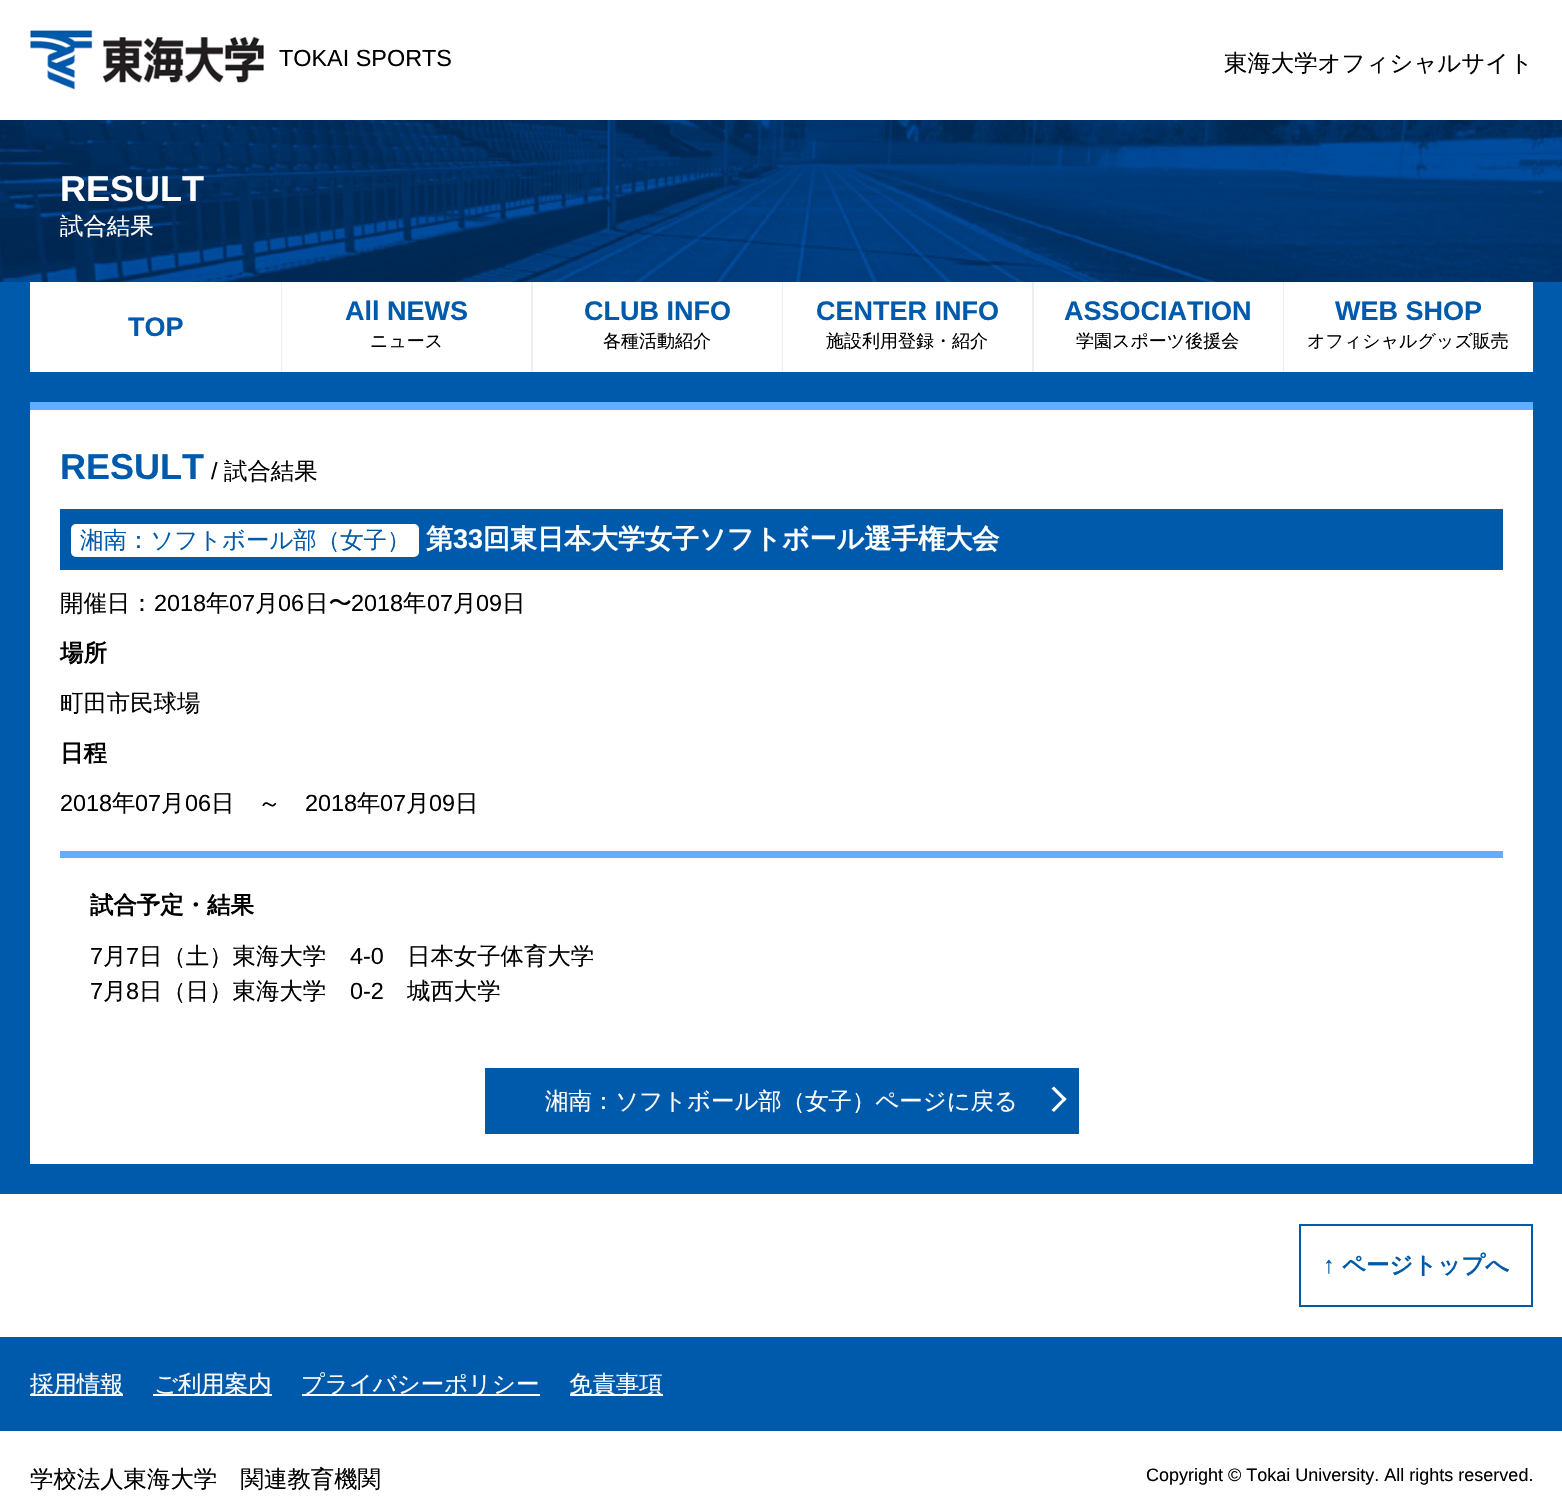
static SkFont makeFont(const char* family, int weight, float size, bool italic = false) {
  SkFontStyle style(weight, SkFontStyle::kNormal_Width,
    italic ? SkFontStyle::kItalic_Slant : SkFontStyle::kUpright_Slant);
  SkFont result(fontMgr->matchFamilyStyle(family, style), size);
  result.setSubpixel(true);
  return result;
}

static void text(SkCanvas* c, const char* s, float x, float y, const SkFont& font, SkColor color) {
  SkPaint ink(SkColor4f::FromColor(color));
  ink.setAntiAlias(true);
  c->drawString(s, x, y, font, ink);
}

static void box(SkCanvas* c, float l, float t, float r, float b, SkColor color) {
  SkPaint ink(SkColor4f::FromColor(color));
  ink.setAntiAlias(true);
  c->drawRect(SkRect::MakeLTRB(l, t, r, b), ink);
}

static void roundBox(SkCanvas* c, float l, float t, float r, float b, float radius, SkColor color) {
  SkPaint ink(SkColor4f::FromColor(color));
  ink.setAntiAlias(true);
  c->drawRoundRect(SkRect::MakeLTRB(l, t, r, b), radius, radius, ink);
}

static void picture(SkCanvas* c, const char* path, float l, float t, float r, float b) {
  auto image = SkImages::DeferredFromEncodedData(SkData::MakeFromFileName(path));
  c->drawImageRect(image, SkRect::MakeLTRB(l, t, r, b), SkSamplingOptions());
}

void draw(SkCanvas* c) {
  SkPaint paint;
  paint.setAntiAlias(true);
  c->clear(0xffffffff);
  picture(c, "img_01.png", 30, 30, 264, 90);
  SkFont face1 = makeFont("Liberation Sans", 400, 23.4f);
  text(c, "TOKAI SPORTS", 279, 66, face1, 0xff000000);
  SkFont face2 = makeFont("WenQuanYi Zen Hei", 500, 23.4f);
  text(c, "東海大学オフィシャルサイト", 1224, 71, face2, 0xff000000);
  picture(c, "img_02.png", 0, 120, 1562, 282);
  SkFont face3 = makeFont("Liberation Sans", 700, 36);
  text(c, "RESULT", 60, 201, face3, 0xffffffff);
  text(c, "試合結果", 60, 234, face2, 0xffffffff);
  box(c, 0, 282, 1562, 1194, 0xff005aab);
  box(c, 30, 282, 281, 372, 0xffffffff);
  SkFont face4 = makeFont("Liberation Sans", 700, 27);
  text(c, "TOP", 128, 336, face4, 0xff005aab);
  box(c, 281, 282, 282, 372, 0xffeeeeee);
  box(c, 282, 282, 531, 372, 0xffffffff);
  text(c, "All NEWS", 345, 320, face4, 0xff005aab);
  SkFont face5 = makeFont("WenQuanYi Zen Hei", 500, 18);
  text(c, "ニュース", 370, 347, face5, 0xff000000);
  box(c, 531, 282, 533, 372, 0xffeeeeee);
  box(c, 533, 282, 782, 372, 0xffffffff);
  text(c, "CLUB INFO", 584, 320, face4, 0xff005aab);
  text(c, "各種活動紹介", 603, 347, face5, 0xff000000);
  box(c, 782, 282, 783, 372, 0xffeeeeee);
  box(c, 783, 282, 1032, 372, 0xffffffff);
  text(c, "CENTER INFO", 816, 320, face4, 0xff005aab);
  text(c, "施設利用登録・紹介", 826, 347, face5, 0xff000000);
  box(c, 1032, 282, 1034, 372, 0xffeeeeee);
  box(c, 1034, 282, 1283, 372, 0xffffffff);
  text(c, "ASSOCIATION", 1064, 320, face4, 0xff005aab);
  text(c, "学園スポーツ後援会", 1076, 347, face5, 0xff000000);
  box(c, 1283, 282, 1284, 372, 0xffeeeeee);
  box(c, 1284, 282, 1533, 372, 0xffffffff);
  text(c, "WEB SHOP", 1335, 320, face4, 0xff005aab);
  text(c, "オフィシャルグッズ販売", 1307, 347, face5, 0xff000000);
  box(c, 30, 410, 1533, 1164, 0xffffffff);
  box(c, 30, 402, 1533, 410, 0xff61adff);
  text(c, "RESULT", 60, 479, face3, 0xff005aab);
  text(c, "/", 211, 479, face1, 0xff000000);
  text(c, "試合結果", 224, 479, face2, 0xff000000);
  box(c, 60, 509, 1503, 570, 0xff005aab);
  roundBox(c, 71, 524, 419, 557, 5, 0xffffffff);
  text(c, "湘南：ソフトボール部（女子）", 80, 548, face2, 0xff005aab);
  SkFont face6 = makeFont("WenQuanYi Zen Hei", 700, 27);
  text(c, "第", 426, 548, face6, 0xffffffff);
  text(c, "33", 453, 548, face4, 0xffffffff);
  text(c, "回東日本大学女子ソフトボール選手権大会", 483, 548, face6, 0xffffffff);
  text(c, "開催日：", 60, 611, face2, 0xff000000);
  text(c, "2018", 154, 611, face1, 0xff000000);
  text(c, "年", 206, 611, face2, 0xff000000);
  text(c, "07", 229, 611, face1, 0xff000000);
  text(c, "月", 255, 611, face2, 0xff000000);
  text(c, "06", 278, 611, face1, 0xff000000);
  text(c, "日〜", 305, 611, face2, 0xff000000);
  text(c, "2018", 351, 611, face1, 0xff000000);
  text(c, "年", 403, 611, face2, 0xff000000);
  text(c, "07", 427, 611, face1, 0xff000000);
  text(c, "月", 453, 611, face2, 0xff000000);
  text(c, "09", 476, 611, face1, 0xff000000);
  text(c, "日", 502, 611, face2, 0xff000000);
  SkFont face7 = makeFont("WenQuanYi Zen Hei", 700, 23.4f);
  text(c, "場所", 60, 661, face7, 0xff000000);
  text(c, "町田市民球場", 60, 711, face2, 0xff000000);
  text(c, "日程", 60, 761, face7, 0xff000000);
  text(c, "2018", 60, 811, face1, 0xff000000);
  text(c, "年", 112, 811, face2, 0xff000000);
  text(c, "07", 135, 811, face1, 0xff000000);
  text(c, "月", 161, 811, face2, 0xff000000);
  text(c, "06", 185, 811, face1, 0xff000000);
  text(c, "日　～", 211, 811, face2, 0xff000000);
  text(c, "2018", 305, 811, face1, 0xff000000);
  text(c, "年", 357, 811, face2, 0xff000000);
  text(c, "07", 380, 811, face1, 0xff000000);
  text(c, "月", 406, 811, face2, 0xff000000);
  text(c, "09", 429, 811, face1, 0xff000000);
  text(c, "日", 455, 811, face2, 0xff000000);
  box(c, 60, 851, 1503, 858, 0xff61adff);
  text(c, "試合予定・結果", 90, 913, face7, 0xff000000);
  text(c, "7", 90, 964, face1, 0xff000000);
  text(c, "月", 103, 964, face2, 0xff000000);
  text(c, "7", 126, 964, face1, 0xff000000);
  text(c, "日（土）東海大学", 139, 964, face2, 0xff000000);
  text(c, "4-0", 350, 964, face1, 0xff000000);
  text(c, "日本女子体育大学", 407, 964, face2, 0xff000000);
  text(c, "7", 90, 999, face1, 0xff000000);
  text(c, "月", 103, 999, face2, 0xff000000);
  text(c, "8", 126, 999, face1, 0xff000000);
  text(c, "日（日）東海大学", 139, 999, face2, 0xff000000);
  text(c, "0-2", 350, 999, face1, 0xff000000);
  text(c, "城西大学", 407, 999, face2, 0xff000000);
  box(c, 485, 1068, 1079, 1134, 0xff005aab);
  text(c, "湘南：ソフトボール部（女子）ページに戻る", 545, 1109, face2, 0xffffffff);
  paint.setColor(0xffffffff);
  c->drawPath(SkPathBuilder().moveTo(1054, 1086.5f).lineTo(1066.5f, 1099).lineTo(1064.5f, 1101.5f).lineTo(1051.5f, 1088.5f).close().detach(), paint);
  c->drawPath(SkPathBuilder().moveTo(1064.5f, 1097).lineTo(1066.5f, 1099).lineTo(1054, 1112).lineTo(1051.5f, 1110).close().detach(), paint);
  paint.setStyle(SkPaint::kStroke_Style);
  paint.setStrokeWidth(2);
  paint.setColor(0xff005aab);
  c->drawRect(SkRect::MakeLTRB(1300, 1225, 1532, 1306), paint);
  SkFont face8 = makeFont("Liberation Sans", 700, 23.4f);
  text(c, "↑", 1323, 1273, face8, 0xff005aab);
  text(c, "ページトップへ", 1342, 1273, face7, 0xff005aab);
  box(c, 0, 1337, 1562, 1431, 0xff005aab);
  box(c, 30, 1394, 123, 1396, 0xffffffff);
  text(c, "採用情報", 30, 1392, face2, 0xffffffff);
  box(c, 153, 1394, 272, 1396, 0xffffffff);
  text(c, "ご利用案内", 154, 1392, face2, 0xffffffff);
  box(c, 302, 1394, 540, 1396, 0xffffffff);
  text(c, "プライバシーポリシー", 301, 1392, face2, 0xffffffff);
  box(c, 570, 1394, 663, 1396, 0xffffffff);
  text(c, "免責事項", 569, 1392, face2, 0xffffffff);
  text(c, "学校法人東海大学　関連教育機関", 30, 1487, face2, 0xff000000);
  SkFont face9 = makeFont("Liberation Sans", 400, 18);
  text(c, "Copyright © Tokai University. All rights reserved.", 1146, 1481, face9, 0xff000000);
}
